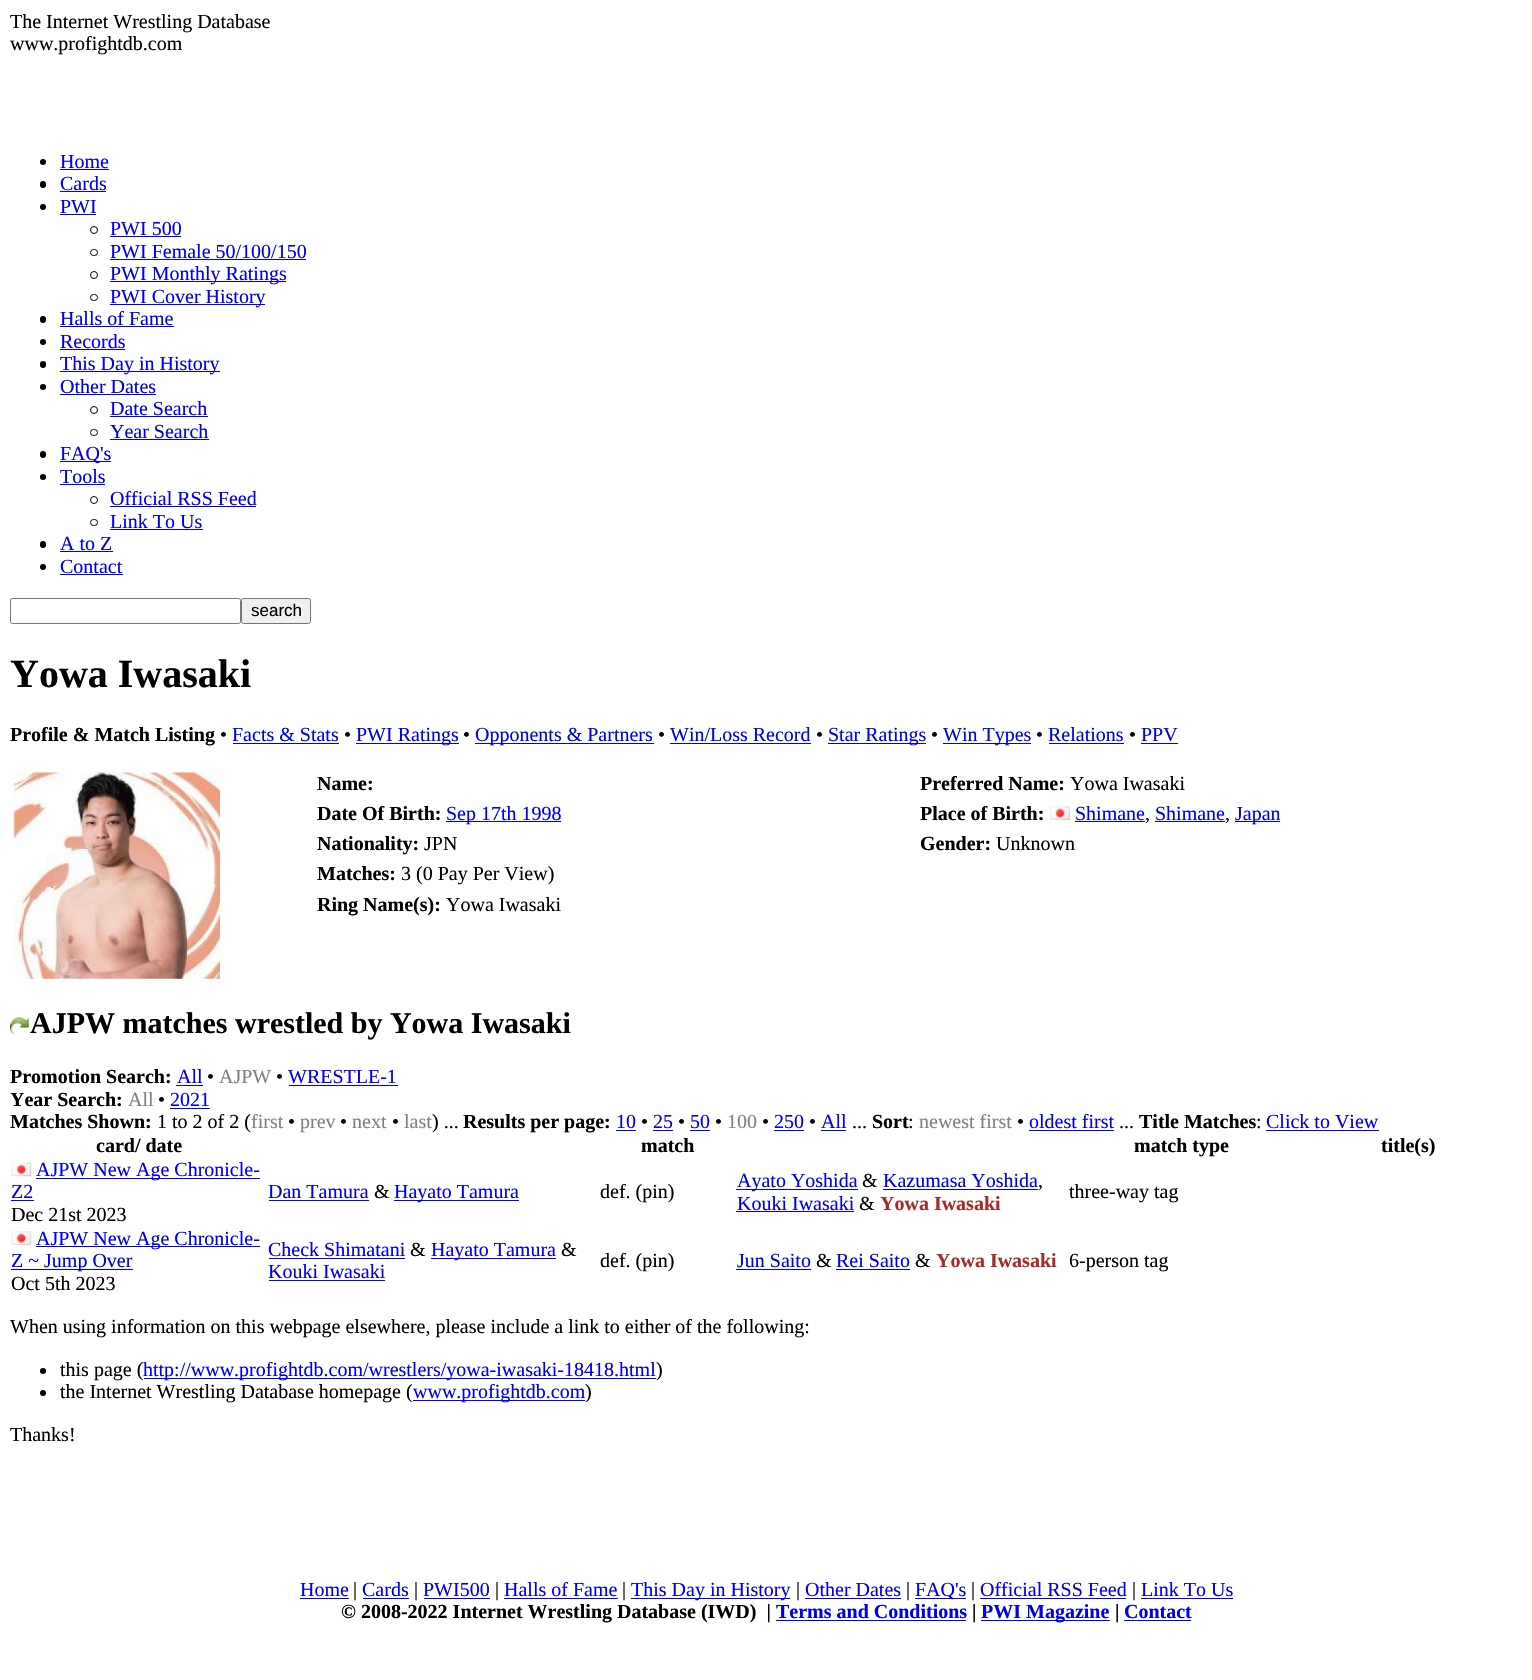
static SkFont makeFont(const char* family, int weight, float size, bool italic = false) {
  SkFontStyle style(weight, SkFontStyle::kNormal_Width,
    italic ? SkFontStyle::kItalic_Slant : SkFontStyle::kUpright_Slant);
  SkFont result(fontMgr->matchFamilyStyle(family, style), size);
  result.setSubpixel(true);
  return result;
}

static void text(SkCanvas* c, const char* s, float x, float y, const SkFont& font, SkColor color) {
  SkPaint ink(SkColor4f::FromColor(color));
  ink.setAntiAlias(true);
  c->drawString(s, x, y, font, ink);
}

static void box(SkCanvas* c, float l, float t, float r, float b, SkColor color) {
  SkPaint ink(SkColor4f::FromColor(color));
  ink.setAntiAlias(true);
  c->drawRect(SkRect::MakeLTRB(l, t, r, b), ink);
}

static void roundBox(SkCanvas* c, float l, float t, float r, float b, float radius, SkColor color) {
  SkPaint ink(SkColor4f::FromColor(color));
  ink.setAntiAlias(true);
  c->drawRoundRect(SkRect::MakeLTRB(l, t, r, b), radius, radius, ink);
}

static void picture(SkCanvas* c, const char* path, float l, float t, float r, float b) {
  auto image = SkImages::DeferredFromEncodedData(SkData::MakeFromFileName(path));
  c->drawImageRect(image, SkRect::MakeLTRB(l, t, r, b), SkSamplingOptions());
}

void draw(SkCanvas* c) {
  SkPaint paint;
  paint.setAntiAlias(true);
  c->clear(0xffffffff);
  SkFont face1 = makeFont("Liberation Serif", 400, 20);
  text(c, "The Internet Wrestling Database", 10, 28, face1, 0xff000000);
  text(c, "www.profightdb.com", 10, 50, face1, 0xff000000);
  paint.setColor(0xff000000);
  c->drawCircle(43, 162, 3, paint);
  text(c, "Home", 60, 168, face1, 0xff0000ee);
  box(c, 60, 169, 109, 170, 0xff0000ee);
  roundBox(c, 40, 181, 46, 188, 3, 0xff000000);
  text(c, "Cards", 60, 190, face1, 0xff0000ee);
  box(c, 60, 191, 106, 192, 0xff0000ee);
  c->drawCircle(43, 207, 3, paint);
  text(c, "PWI", 60, 213, face1, 0xff0000ee);
  box(c, 60, 214, 96, 215, 0xff0000ee);
  paint.setStyle(SkPaint::kStroke_Style);
  paint.setStrokeWidth(1);
  c->drawCircle(94, 230, 3.5f, paint);
  text(c, "PWI 500", 110, 235, face1, 0xff0000ee);
  box(c, 110, 236, 181, 237, 0xff0000ee);
  c->drawRoundRect(SkRect::MakeLTRB(90.5f, 249.5f, 97.5f, 255.5f), 3, 3, paint);
  text(c, "PWI Female 50/100/150", 110, 258, face1, 0xff0000ee);
  box(c, 110, 259, 306, 260, 0xff0000ee);
  c->drawCircle(94, 275, 3.5f, paint);
  box(c, 110, 281, 286, 282, 0xff0000ee);
  text(c, "PWI Monthly Ratings", 110, 280, face1, 0xff0000ee);
  c->drawRoundRect(SkRect::MakeLTRB(90.5f, 294.5f, 97.5f, 300.5f), 3, 3, paint);
  box(c, 110, 304, 265, 305, 0xff0000ee);
  text(c, "PWI Cover History", 110, 303, face1, 0xff0000ee);
  roundBox(c, 40, 316, 46, 323, 3, 0xff000000);
  text(c, "Halls of Fame", 60, 325, face1, 0xff0000ee);
  box(c, 60, 326, 174, 327, 0xff0000ee);
  paint.setStyle(SkPaint::kFill_Style);
  c->drawCircle(43, 342, 3, paint);
  text(c, "Records", 60, 348, face1, 0xff0000ee);
  box(c, 60, 349, 125, 350, 0xff0000ee);
  roundBox(c, 40, 361, 46, 368, 3, 0xff000000);
  box(c, 60, 371, 220, 372, 0xff0000ee);
  text(c, "This Day in History", 60, 370, face1, 0xff0000ee);
  c->drawCircle(43, 387, 3, paint);
  text(c, "Other Dates", 60, 393, face1, 0xff0000ee);
  box(c, 60, 394, 156, 395, 0xff0000ee);
  paint.setStyle(SkPaint::kStroke_Style);
  c->drawCircle(94, 410, 3.5f, paint);
  text(c, "Date Search", 110, 415, face1, 0xff0000ee);
  box(c, 110, 416, 208, 417, 0xff0000ee);
  c->drawRoundRect(SkRect::MakeLTRB(90.5f, 429.5f, 97.5f, 435.5f), 3, 3, paint);
  text(c, "Year Search", 110, 438, face1, 0xff0000ee);
  box(c, 110, 439, 209, 440, 0xff0000ee);
  roundBox(c, 40, 451, 46, 458, 3, 0xff000000);
  box(c, 60, 461, 111, 462, 0xff0000ee);
  text(c, "FAQ's", 60, 460, face1, 0xff0000ee);
  paint.setStyle(SkPaint::kFill_Style);
  c->drawCircle(43, 477, 3, paint);
  text(c, "Tools", 60, 483, face1, 0xff0000ee);
  box(c, 60, 484, 105, 485, 0xff0000ee);
  paint.setStyle(SkPaint::kStroke_Style);
  c->drawCircle(94, 500, 3.5f, paint);
  text(c, "Official RSS Feed", 110, 505, face1, 0xff0000ee);
  box(c, 110, 506, 256, 507, 0xff0000ee);
  c->drawRoundRect(SkRect::MakeLTRB(90.5f, 519.5f, 97.5f, 525.5f), 3, 3, paint);
  text(c, "Link To Us", 110, 528, face1, 0xff0000ee);
  box(c, 110, 529, 203, 530, 0xff0000ee);
  roundBox(c, 40, 541, 46, 548, 3, 0xff000000);
  text(c, "A to Z", 60, 550, face1, 0xff0000ee);
  box(c, 60, 551, 113, 552, 0xff0000ee);
  paint.setStyle(SkPaint::kFill_Style);
  c->drawCircle(43, 567, 3, paint);
  text(c, "Contact", 60, 573, face1, 0xff0000ee);
  box(c, 60, 574, 123, 575, 0xff0000ee);
  paint.setStyle(SkPaint::kStroke_Style);
  paint.setColor(0xff767676);
  c->drawRoundRect(SkRect::MakeLTRB(10.5f, 598.5f, 240.5f, 623.5f), 2, 2, paint);
  paint.setStyle(SkPaint::kFill_Style);
  paint.setColor(0xffefefef);
  c->drawRoundRect(SkRect::MakeLTRB(241.5f, 598.5f, 310.5f, 623.5f), 2, 2, paint);
  paint.setStyle(SkPaint::kStroke_Style);
  paint.setColor(0xff767676);
  c->drawRoundRect(SkRect::MakeLTRB(241.5f, 598.5f, 310.5f, 623.5f), 2, 2, paint);
  SkFont face2 = makeFont("Liberation Sans", 400, 17);
  text(c, "search", 251, 616, face2, 0xff000000);
  SkFont face3 = makeFont("Liberation Serif", 700, 40);
  text(c, "Yowa Iwasaki", 10, 687, face3, 0xff000000);
  SkFont face4 = makeFont("Liberation Serif", 700, 20);
  text(c, "Profile & Match Listing", 10, 741, face4, 0xff000000);
  text(c, "•", 220, 741, face1, 0xff000000);
  text(c, "Facts & Stats", 232, 741, face1, 0xff0000ee);
  box(c, 233, 743, 339, 744, 0xff0000ee);
  text(c, "•", 344, 741, face1, 0xff000000);
  box(c, 356, 743, 459, 744, 0xff0000ee);
  text(c, "PWI Ratings", 356, 741, face1, 0xff0000ee);
  text(c, "•", 463, 741, face1, 0xff000000);
  box(c, 475, 743, 654, 744, 0xff0000ee);
  text(c, "Opponents & Partners", 475, 741, face1, 0xff0000ee);
  text(c, "•", 658, 741, face1, 0xff000000);
  text(c, "Win/Loss Record", 670, 741, face1, 0xff0000ee);
  box(c, 670, 743, 811, 744, 0xff0000ee);
  text(c, "•", 816, 741, face1, 0xff000000);
  box(c, 828, 743, 926, 744, 0xff0000ee);
  text(c, "Star Ratings", 828, 741, face1, 0xff0000ee);
  text(c, "•", 931, 741, face1, 0xff000000);
  box(c, 943, 743, 1031, 744, 0xff0000ee);
  text(c, "Win Types", 943, 741, face1, 0xff0000ee);
  text(c, "•", 1036, 741, face1, 0xff000000);
  text(c, "Relations", 1048, 741, face1, 0xff0000ee);
  box(c, 1049, 743, 1124, 744, 0xff0000ee);
  text(c, "•", 1129, 741, face1, 0xff000000);
  text(c, "PPV", 1141, 741, face1, 0xff0000ee);
  box(c, 1141, 743, 1178, 744, 0xff0000ee);
  picture(c, "img_01.png", 13, 772, 220, 979);
  text(c, "Name:", 317, 790, face4, 0xff000000);
  text(c, "Preferred Name:", 920, 790, face4, 0xff000000);
  text(c, "Yowa Iwasaki", 1070, 790, face1, 0xff000000);
  text(c, "Date Of Birth:", 317, 820, face4, 0xff000000);
  box(c, 446, 821, 561, 822, 0xff0000ee);
  text(c, "Sep 17th 1998", 446, 820, face1, 0xff0000ee);
  text(c, "Place of Birth:", 920, 820, face4, 0xff000000);
  picture(c, "img_02.png", 1050, 806, 1070, 820);
  text(c, "Shimane", 1075, 820, face1, 0xff0000ee);
  box(c, 1075, 821, 1145, 822, 0xff0000ee);
  text(c, ",", 1145, 820, face1, 0xff000000);
  text(c, "Shimane", 1155, 820, face1, 0xff0000ee);
  box(c, 1155, 821, 1225, 822, 0xff0000ee);
  text(c, ",", 1225, 820, face1, 0xff000000);
  box(c, 1235, 821, 1280, 822, 0xff0000ee);
  text(c, "Japan", 1235, 820, face1, 0xff0000ee);
  text(c, "Nationality:", 317, 850, face4, 0xff000000);
  text(c, "JPN", 424, 850, face1, 0xff000000);
  text(c, "Gender:", 920, 850, face4, 0xff000000);
  text(c, "Unknown", 996, 850, face1, 0xff000000);
  text(c, "Matches:", 317, 880, face4, 0xff000000);
  text(c, "3 (0 Pay Per View)", 401, 880, face1, 0xff000000);
  text(c, "Ring Name(s):", 317, 911, face4, 0xff000000);
  text(c, "Yowa Iwasaki", 446, 911, face1, 0xff000000);
  picture(c, "img_03.png", 10, 1017, 29, 1034);
  SkFont face5 = makeFont("Liberation Serif", 700, 30);
  text(c, "AJPW matches wrestled by Yowa Iwasaki", 30, 1033, face5, 0xff000000);
  text(c, "Promotion Search:", 10, 1083, face4, 0xff000000);
  text(c, "All", 177, 1083, face1, 0xff0000ee);
  box(c, 176, 1085, 203, 1086, 0xff0000ee);
  text(c, "•", 207, 1083, face1, 0xff000000);
  text(c, "AJPW", 219, 1083, face1, 0xff808080);
  text(c, "•", 276, 1083, face1, 0xff000000);
  text(c, "WRESTLE-1", 288, 1083, face1, 0xff0000ee);
  box(c, 289, 1085, 398, 1086, 0xff0000ee);
  text(c, "Year Search:", 10, 1106, face4, 0xff000000);
  text(c, "All", 128, 1106, face1, 0xff808080);
  text(c, "•", 158, 1106, face1, 0xff000000);
  text(c, "2021", 170, 1106, face1, 0xff0000ee);
  box(c, 170, 1108, 210, 1109, 0xff0000ee);
  text(c, "Matches Shown:", 10, 1128, face4, 0xff000000);
  text(c, "1 to 2 of 2 (", 157, 1128, face1, 0xff000000);
  text(c, "first", 251, 1128, face1, 0xff808080);
  text(c, "•", 288, 1128, face1, 0xff000000);
  text(c, "prev", 300, 1128, face1, 0xff808080);
  text(c, "•", 340, 1128, face1, 0xff000000);
  text(c, "next", 352, 1128, face1, 0xff808080);
  text(c, "•", 392, 1128, face1, 0xff000000);
  text(c, "last", 404, 1128, face1, 0xff808080);
  text(c, ") ...", 432, 1128, face1, 0xff000000);
  text(c, "Results per page:", 463, 1128, face4, 0xff000000);
  text(c, "10", 616, 1128, face1, 0xff0000ee);
  box(c, 616, 1130, 636, 1131, 0xff0000ee);
  text(c, "•", 641, 1128, face1, 0xff000000);
  text(c, "25", 653, 1128, face1, 0xff0000ee);
  box(c, 653, 1130, 673, 1131, 0xff0000ee);
  text(c, "•", 678, 1128, face1, 0xff000000);
  text(c, "50", 690, 1128, face1, 0xff0000ee);
  box(c, 690, 1130, 710, 1131, 0xff0000ee);
  text(c, "•", 715, 1128, face1, 0xff000000);
  text(c, "100", 727, 1128, face1, 0xff808080);
  text(c, "•", 762, 1128, face1, 0xff000000);
  text(c, "250", 774, 1128, face1, 0xff0000ee);
  box(c, 774, 1130, 804, 1131, 0xff0000ee);
  text(c, "•", 809, 1128, face1, 0xff000000);
  text(c, "All", 821, 1128, face1, 0xff0000ee);
  box(c, 821, 1130, 846, 1131, 0xff0000ee);
  text(c, "Sort", 872, 1128, face4, 0xff000000);
  text(c, ":", 908, 1128, face1, 0xff000000);
  text(c, "newest first", 919, 1128, face1, 0xff808080);
  text(c, "•", 1017, 1128, face1, 0xff000000);
  text(c, "oldest first", 1029, 1128, face1, 0xff0000ee);
  box(c, 1029, 1130, 1114, 1131, 0xff0000ee);
  text(c, "Title Matches", 1139, 1128, face4, 0xff000000);
  text(c, ":", 1256, 1128, face1, 0xff000000);
  text(c, "Click to View", 1266, 1128, face1, 0xff0000ee);
  box(c, 1266, 1130, 1379, 1131, 0xff0000ee);
  text(c, "...", 852, 1128, face1, 0xff000000);
  text(c, "...", 1119, 1128, face1, 0xff000000);
  text(c, "card/ date", 96, 1152, face4, 0xff000000);
  text(c, "match", 641, 1152, face4, 0xff000000);
  text(c, "match type", 1134, 1152, face4, 0xff000000);
  text(c, "title(s)", 1381, 1152, face4, 0xff000000);
  picture(c, "img_04.png", 11, 1162, 32, 1177);
  box(c, 36, 1178, 260, 1179, 0xff0000ee);
  text(c, "AJPW New Age Chronicle-", 36, 1176, face1, 0xff0000ee);
  text(c, "Z2", 11, 1198, face1, 0xff0000ee);
  box(c, 11, 1200, 34, 1201, 0xff0000ee);
  text(c, "Dec 21st 2023", 11, 1221, face1, 0xff000000);
  text(c, "Dan Tamura", 268, 1198, face1, 0xff0000ee);
  box(c, 269, 1200, 369, 1201, 0xff0000ee);
  text(c, "&", 374, 1198, face1, 0xff000000);
  box(c, 394, 1200, 519, 1201, 0xff0000ee);
  text(c, "Hayato Tamura", 394, 1198, face1, 0xff0000ee);
  text(c, "def. (pin)", 600, 1198, face1, 0xff000000);
  box(c, 736, 1189, 858, 1190, 0xff0000ee);
  text(c, "Ayato Yoshida", 737, 1187, face1, 0xff0000ee);
  text(c, "&", 862, 1187, face1, 0xff000000);
  text(c, "Kazumasa Yoshida", 883, 1187, face1, 0xff0000ee);
  box(c, 883, 1189, 1038, 1190, 0xff0000ee);
  text(c, ",", 1038, 1187, face1, 0xff000000);
  text(c, "Kouki Iwasaki", 737, 1210, face1, 0xff0000ee);
  box(c, 736, 1211, 854, 1212, 0xff0000ee);
  text(c, "&", 859, 1210, face1, 0xff000000);
  text(c, "Yowa Iwasaki", 880, 1210, face4, 0xffa52a2a);
  text(c, "three-way tag", 1069, 1198, face1, 0xff000000);
  picture(c, "img_05.png", 11, 1231, 32, 1245);
  box(c, 36, 1246, 260, 1247, 0xff0000ee);
  text(c, "AJPW New Age Chronicle-", 36, 1245, face1, 0xff0000ee);
  box(c, 11, 1269, 133, 1270, 0xff0000ee);
  text(c, "Z ~ Jump Over", 11, 1267, face1, 0xff0000ee);
  text(c, "Oct 5th 2023", 11, 1290, face1, 0xff000000);
  text(c, "Check Shimatani", 268, 1256, face1, 0xff0000ee);
  box(c, 269, 1258, 405, 1259, 0xff0000ee);
  text(c, "&", 410, 1256, face1, 0xff000000);
  box(c, 431, 1258, 556, 1259, 0xff0000ee);
  text(c, "Hayato Tamura", 431, 1256, face1, 0xff0000ee);
  text(c, "&", 561, 1256, face1, 0xff000000);
  text(c, "Kouki Iwasaki", 268, 1278, face1, 0xff0000ee);
  box(c, 269, 1280, 385, 1281, 0xff0000ee);
  text(c, "def. (pin)", 600, 1267, face1, 0xff000000);
  text(c, "Jun Saito", 737, 1267, face1, 0xff0000ee);
  box(c, 736, 1269, 811, 1270, 0xff0000ee);
  text(c, "&", 816, 1267, face1, 0xff000000);
  text(c, "Rei Saito", 836, 1267, face1, 0xff0000ee);
  box(c, 836, 1269, 910, 1270, 0xff0000ee);
  text(c, "&", 915, 1267, face1, 0xff000000);
  text(c, "Yowa Iwasaki", 936, 1267, face4, 0xffa52a2a);
  text(c, "6-person tag", 1069, 1267, face1, 0xff000000);
  text(c, "When using information on this webpage elsewhere, please include a link to either of the following:", 10, 1333, face1, 0xff000000);
  paint.setStyle(SkPaint::kFill_Style);
  paint.setColor(0xff000000);
  c->drawCircle(43, 1371, 3, paint);
  text(c, "this page (", 60, 1376, face1, 0xff000000);
  box(c, 144, 1378, 656, 1379, 0xff0000ee);
  text(c, "http://www.profightdb.com/wrestlers/yowa-iwasaki-18418.html", 143, 1376, face1, 0xff0000ee);
  text(c, ")", 656, 1376, face1, 0xff000000);
  c->drawCircle(43, 1393, 3, paint);
  text(c, "the Internet Wrestling Database homepage (", 60, 1398, face1, 0xff000000);
  box(c, 413, 1400, 585, 1401, 0xff0000ee);
  text(c, "www.profightdb.com", 413, 1398, face1, 0xff0000ee);
  text(c, ")", 585, 1398, face1, 0xff000000);
  text(c, "Thanks!", 10, 1441, face1, 0xff000000);
  text(c, "Home", 300, 1596, face1, 0xff0000ee);
  box(c, 300, 1598, 349, 1599, 0xff0000ee);
  text(c, "|", 353, 1596, face1, 0xff000000);
  text(c, "Cards", 362, 1596, face1, 0xff0000ee);
  box(c, 363, 1598, 409, 1599, 0xff0000ee);
  text(c, "|", 414, 1596, face1, 0xff000000);
  text(c, "PWI500", 423, 1596, face1, 0xff0000ee);
  box(c, 424, 1598, 490, 1599, 0xff0000ee);
  text(c, "|", 495, 1596, face1, 0xff000000);
  text(c, "Halls of Fame", 504, 1596, face1, 0xff0000ee);
  box(c, 504, 1598, 618, 1599, 0xff0000ee);
  text(c, "|", 622, 1596, face1, 0xff000000);
  box(c, 631, 1598, 790, 1599, 0xff0000ee);
  text(c, "This Day in History", 631, 1596, face1, 0xff0000ee);
  text(c, "|", 796, 1596, face1, 0xff000000);
  text(c, "Other Dates", 805, 1596, face1, 0xff0000ee);
  box(c, 805, 1598, 901, 1599, 0xff0000ee);
  text(c, "|", 906, 1596, face1, 0xff000000);
  box(c, 915, 1598, 966, 1599, 0xff0000ee);
  text(c, "FAQ's", 915, 1596, face1, 0xff0000ee);
  text(c, "|", 971, 1596, face1, 0xff000000);
  text(c, "Official RSS Feed", 980, 1596, face1, 0xff0000ee);
  box(c, 980, 1598, 1126, 1599, 0xff0000ee);
  text(c, "|", 1132, 1596, face1, 0xff000000);
  text(c, "Link To Us", 1141, 1596, face1, 0xff0000ee);
  box(c, 1141, 1598, 1233, 1599, 0xff0000ee);
  text(c, "© 2008-2022 Internet Wrestling Database (IWD)  |", 341, 1618, face4, 0xff000000);
  text(c, "Terms and Conditions", 776, 1618, face4, 0xff0000ee);
  box(c, 776, 1620, 966, 1621, 0xff0000ee);
  text(c, "|", 972, 1618, face4, 0xff000000);
  box(c, 981, 1620, 1110, 1621, 0xff0000ee);
  text(c, "PWI Magazine", 981, 1618, face4, 0xff0000ee);
  text(c, "|", 1115, 1618, face4, 0xff000000);
  text(c, "Contact", 1124, 1618, face4, 0xff0000ee);
  box(c, 1124, 1620, 1191, 1621, 0xff0000ee);
}
